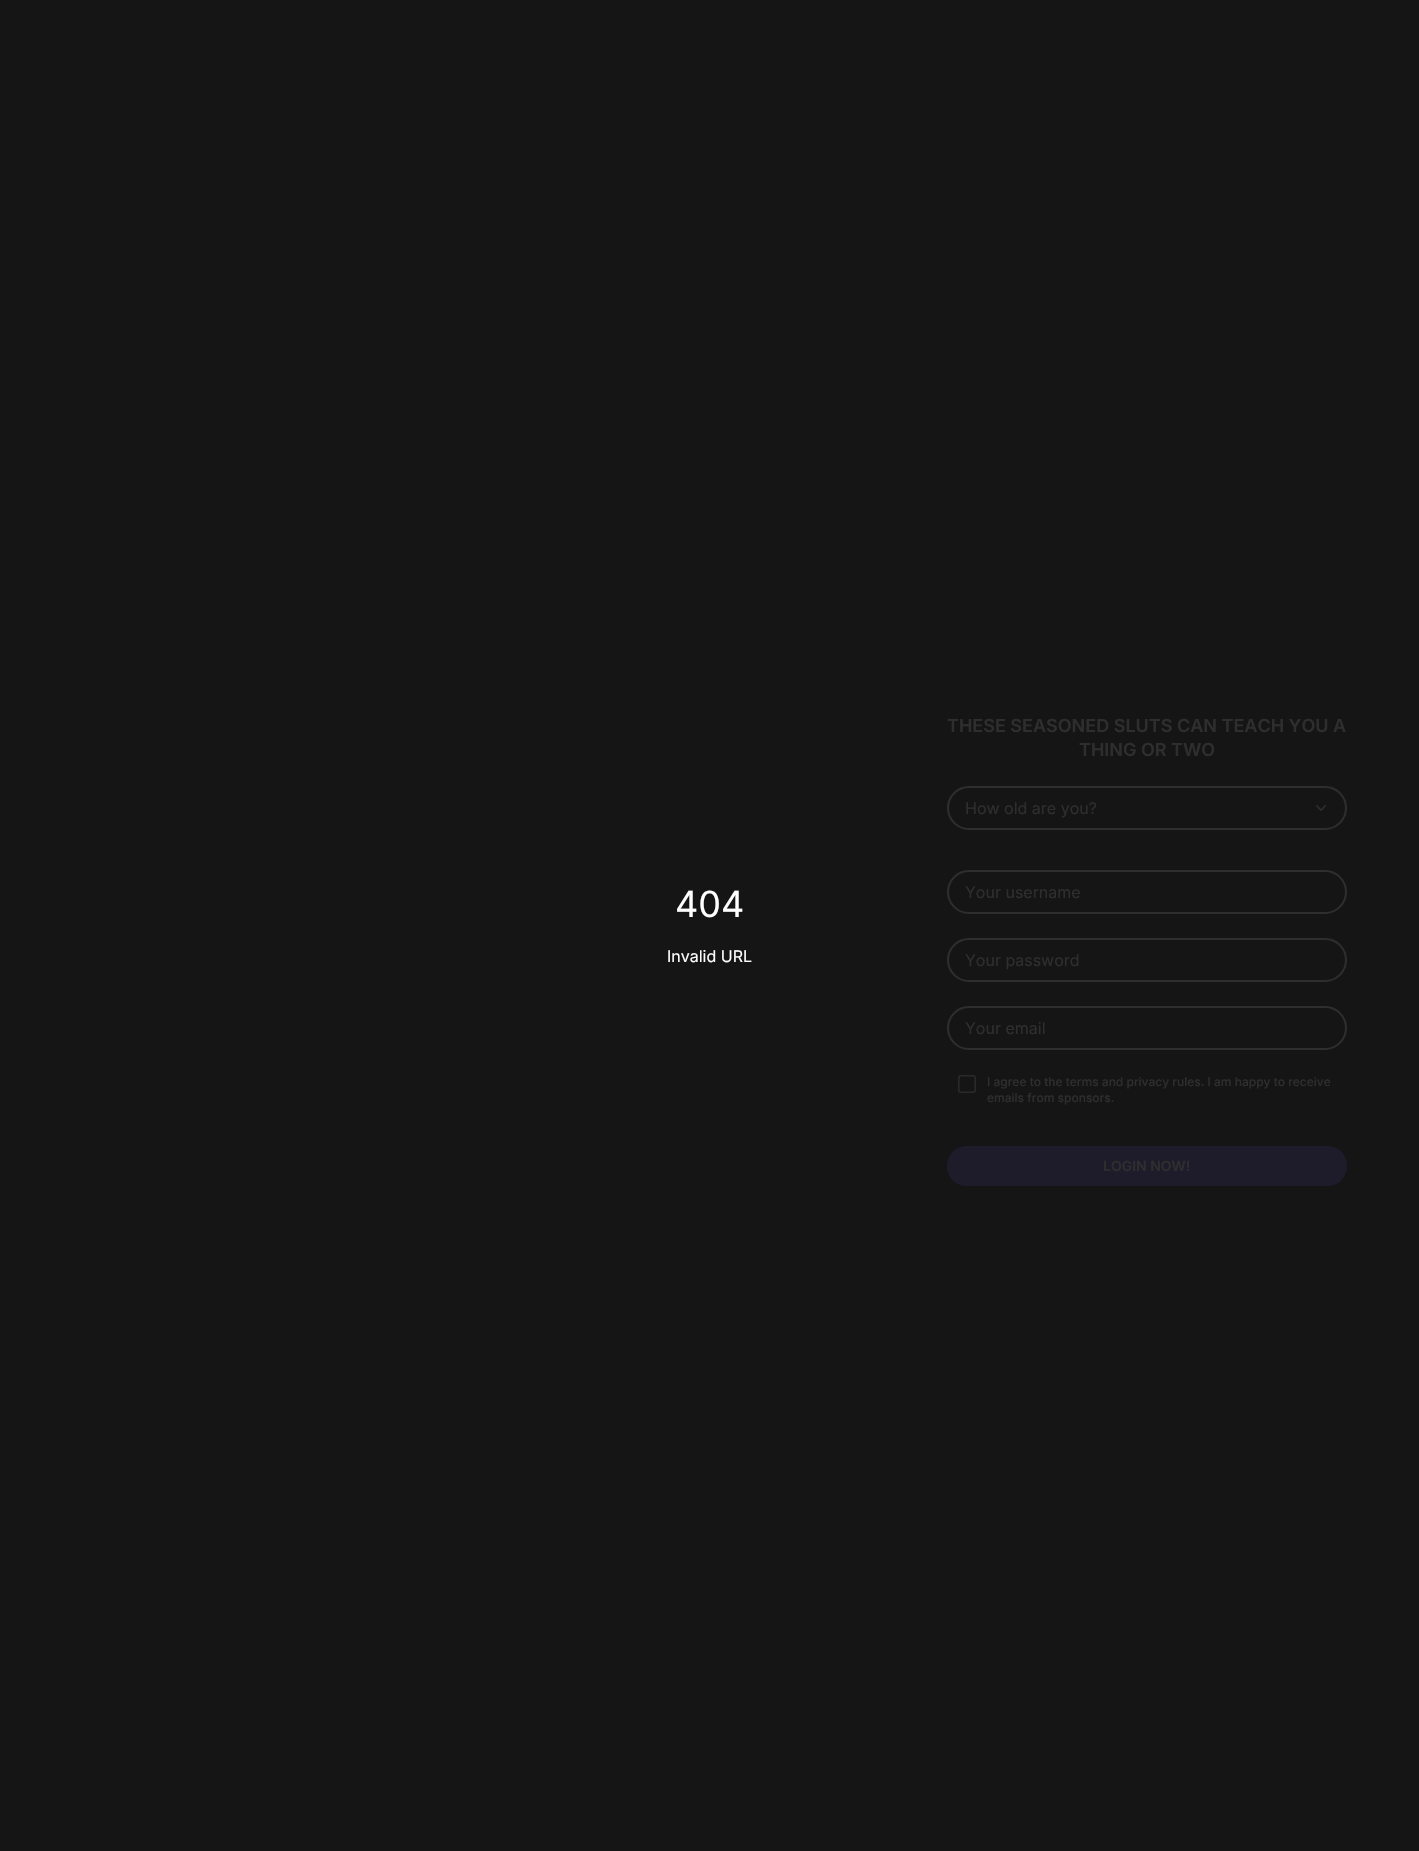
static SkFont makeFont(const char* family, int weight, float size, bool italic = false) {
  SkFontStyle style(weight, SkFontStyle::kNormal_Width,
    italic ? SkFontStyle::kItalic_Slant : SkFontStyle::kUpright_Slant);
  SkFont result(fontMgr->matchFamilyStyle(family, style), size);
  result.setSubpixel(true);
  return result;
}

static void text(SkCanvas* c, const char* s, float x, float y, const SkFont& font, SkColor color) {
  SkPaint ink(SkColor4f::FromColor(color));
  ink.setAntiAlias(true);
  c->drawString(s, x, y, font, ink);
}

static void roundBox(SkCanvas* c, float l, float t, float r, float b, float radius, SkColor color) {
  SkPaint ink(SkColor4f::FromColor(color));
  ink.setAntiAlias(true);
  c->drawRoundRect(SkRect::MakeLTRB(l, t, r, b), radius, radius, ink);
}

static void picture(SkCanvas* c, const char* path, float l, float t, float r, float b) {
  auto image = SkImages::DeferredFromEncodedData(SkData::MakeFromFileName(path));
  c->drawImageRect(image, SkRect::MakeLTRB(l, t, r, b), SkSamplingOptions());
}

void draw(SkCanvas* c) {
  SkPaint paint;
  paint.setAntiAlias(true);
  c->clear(0xff151515);
  SkFont face1 = makeFont("Inter", 400, 36);
  text(c, "404", 675, 917, face1, 0xffffffff);
  SkFont face2 = makeFont("Inter", 400, 16);
  text(c, "Invalid URL", 667, 962, face2, 0xffffffff);
  SkFont face3 = makeFont("Inter", 600, 18);
  text(c, "THESE SEASONED SLUTS CAN TEACH YOU A", 947, 732, face3, 0xff2e2e2e);
  text(c, "THING OR TWO", 1079, 756, face3, 0xff2e2e2e);
  paint.setStyle(SkPaint::kStroke_Style);
  paint.setStrokeWidth(2);
  paint.setColor(0xff2e2e2e);
  c->drawRoundRect(SkRect::MakeLTRB(948, 787, 1346, 829), 21, 21, paint);
  text(c, "How old are you?", 965, 814, face2, 0xff2e2e2e);
  picture(c, "img_01.png", 1316, 805, 1326, 811);
  c->drawRoundRect(SkRect::MakeLTRB(948, 871, 1346, 913), 21, 21, paint);
  text(c, "Your username", 965, 898, face2, 0xff2e2e2e);
  c->drawRoundRect(SkRect::MakeLTRB(948, 939, 1346, 981), 21, 21, paint);
  text(c, "Your password", 965, 966, face2, 0xff2e2e2e);
  c->drawRoundRect(SkRect::MakeLTRB(948, 1007, 1346, 1049), 21, 21, paint);
  text(c, "Your email", 965, 1034, face2, 0xff2e2e2e);
  picture(c, "img_02.png", 958, 1075, 976, 1093);
  SkFont face4 = makeFont("Inter", 500, 12);
  text(c, "I agree to the terms and privacy rules. I am happy to receive", 987, 1086, face4, 0xff2e2e2e);
  text(c, "emails from sponsors.", 987, 1102, face4, 0xff2e2e2e);
  roundBox(c, 947, 1146, 1347, 1186, 20, 0xff1e1c2b);
  SkFont face5 = makeFont("Inter", 600, 14);
  text(c, "LOGIN NOW!", 1103, 1171, face5, 0xff2e2e2e);
}
